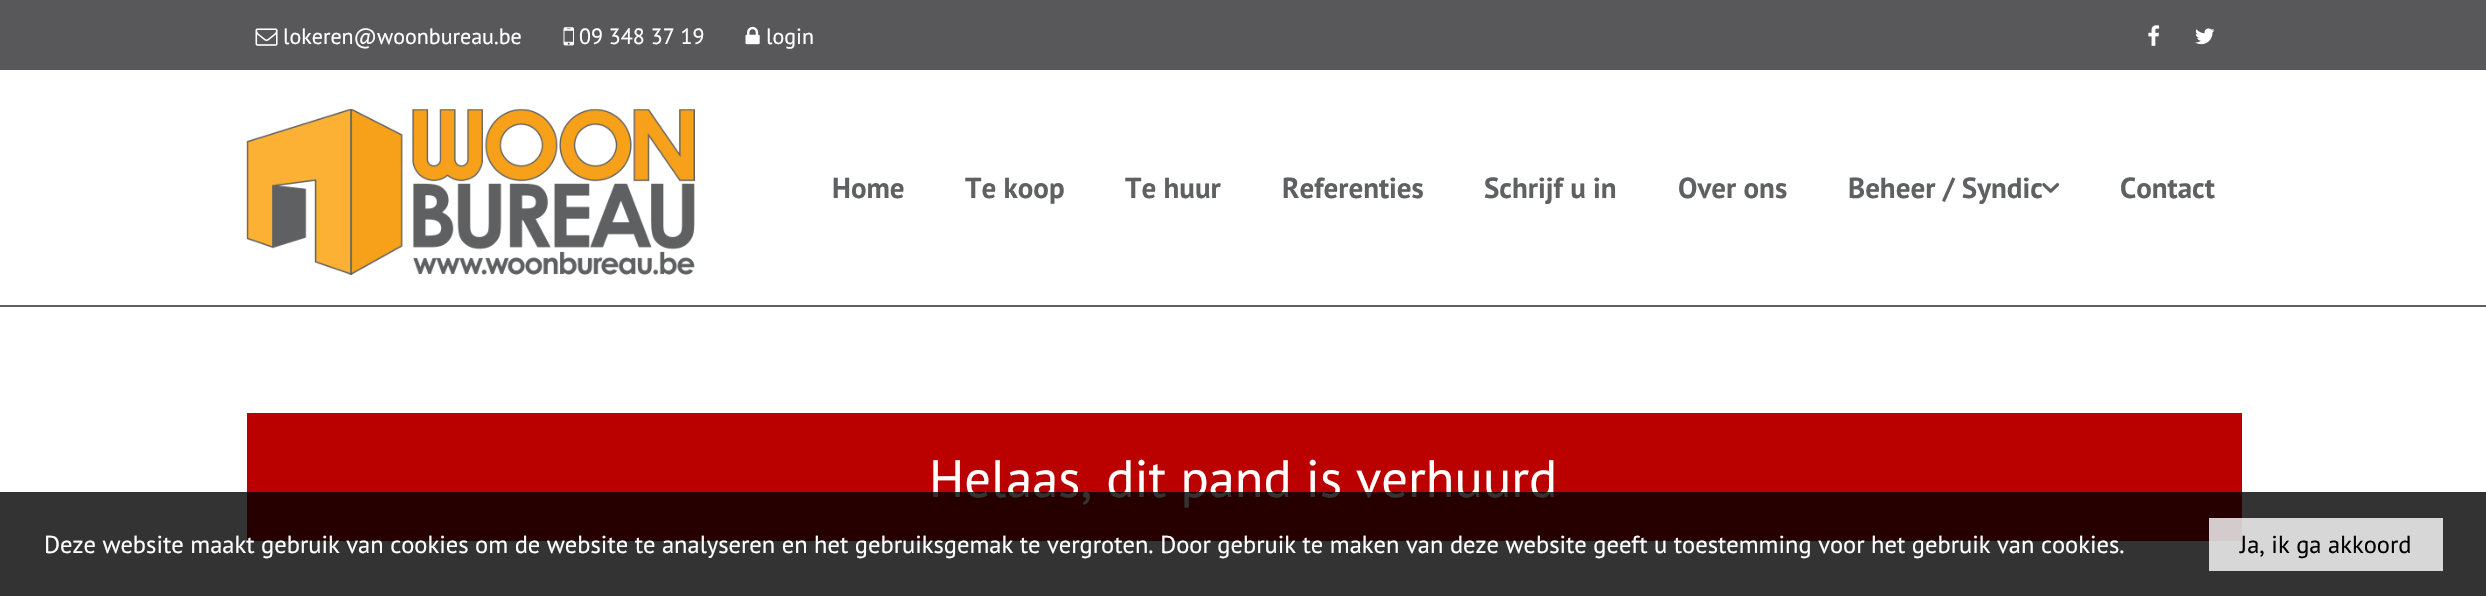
static SkFont makeFont(const char* family, int weight, float size, bool italic = false) {
  SkFontStyle style(weight, SkFontStyle::kNormal_Width,
    italic ? SkFontStyle::kItalic_Slant : SkFontStyle::kUpright_Slant);
  SkFont result(fontMgr->matchFamilyStyle(family, style), size);
  result.setSubpixel(true);
  return result;
}

static void text(SkCanvas* c, const char* s, float x, float y, const SkFont& font, SkColor color) {
  SkPaint ink(SkColor4f::FromColor(color));
  ink.setAntiAlias(true);
  c->drawString(s, x, y, font, ink);
}

static void box(SkCanvas* c, float l, float t, float r, float b, SkColor color) {
  SkPaint ink(SkColor4f::FromColor(color));
  ink.setAntiAlias(true);
  c->drawRect(SkRect::MakeLTRB(l, t, r, b), ink);
}

static void picture(SkCanvas* c, const char* path, float l, float t, float r, float b) {
  auto image = SkImages::DeferredFromEncodedData(SkData::MakeFromFileName(path));
  c->drawImageRect(image, SkRect::MakeLTRB(l, t, r, b), SkSamplingOptions());
}

void draw(SkCanvas* c) {
  SkPaint paint;
  paint.setAntiAlias(true);
  c->clear(0xffffffff);
  box(c, 0, 0, 2486, 70, 0xff58585a);
  picture(c, "img_01.png", 255, 28, 278, 46);
  SkFont face1 = makeFont("PT Sans", 400, 22);
  text(c, "lokeren@woonbureau.be", 283, 44, face1, 0xffffffff);
  picture(c, "img_02.png", 563, 27, 574, 46);
  text(c, "09 348 37 19", 579, 44, face1, 0xffffffff);
  picture(c, "img_03.png", 745, 26, 760, 45);
  text(c, "login", 766, 44, face1, 0xffffffff);
  picture(c, "img_04.png", 2148, 25, 2160, 46);
  picture(c, "img_05.png", 2195, 28, 2215, 45);
  box(c, 0, 305, 2486, 307, 0xff5f6062);
  picture(c, "img_06.png", 246, 109, 695, 275);
  SkFont face2 = makeFont("PT Sans", 700, 29);
  text(c, "Home", 832, 198, face2, 0xff5f6062);
  text(c, "Te koop", 965, 198, face2, 0xff5f6062);
  text(c, "Te huur", 1125, 198, face2, 0xff5f6062);
  text(c, "Referenties", 1282, 198, face2, 0xff5f6062);
  text(c, "Schrijf u in", 1484, 198, face2, 0xff5f6062);
  text(c, "Over ons", 1678, 198, face2, 0xff5f6062);
  text(c, "Beheer / Syndic", 1848, 198, face2, 0xff5f6062);
  picture(c, "img_07.png", 2042, 183, 2060, 193);
  text(c, "Contact", 2120, 198, face2, 0xff5f6062);
  box(c, 247, 413, 2242, 541, 0xffbb0000);
  SkFont face3 = makeFont("PT Sans", 400, 52.5f);
  text(c, "Helaas, dit pand is verhuurd", 929, 497, face3, 0xffffffff);
  box(c, 0, 492, 2486, 596, 0xcc000000);
  SkFont face4 = makeFont("PT Sans", 400, 24.5f);
  text(c, "Deze website maakt gebruik van cookies om de website te analyseren en het gebruiksgemak te vergroten. Door gebruik te maken van deze website geeft u toestemming voor het gebruik van cookies.", 44, 553, face4, 0xffffffff);
  box(c, 2209, 518, 2443, 571, 0xccffffff);
  text(c, "Ja, ik ga akkoord", 2240, 553, face4, 0xff000000);
}
